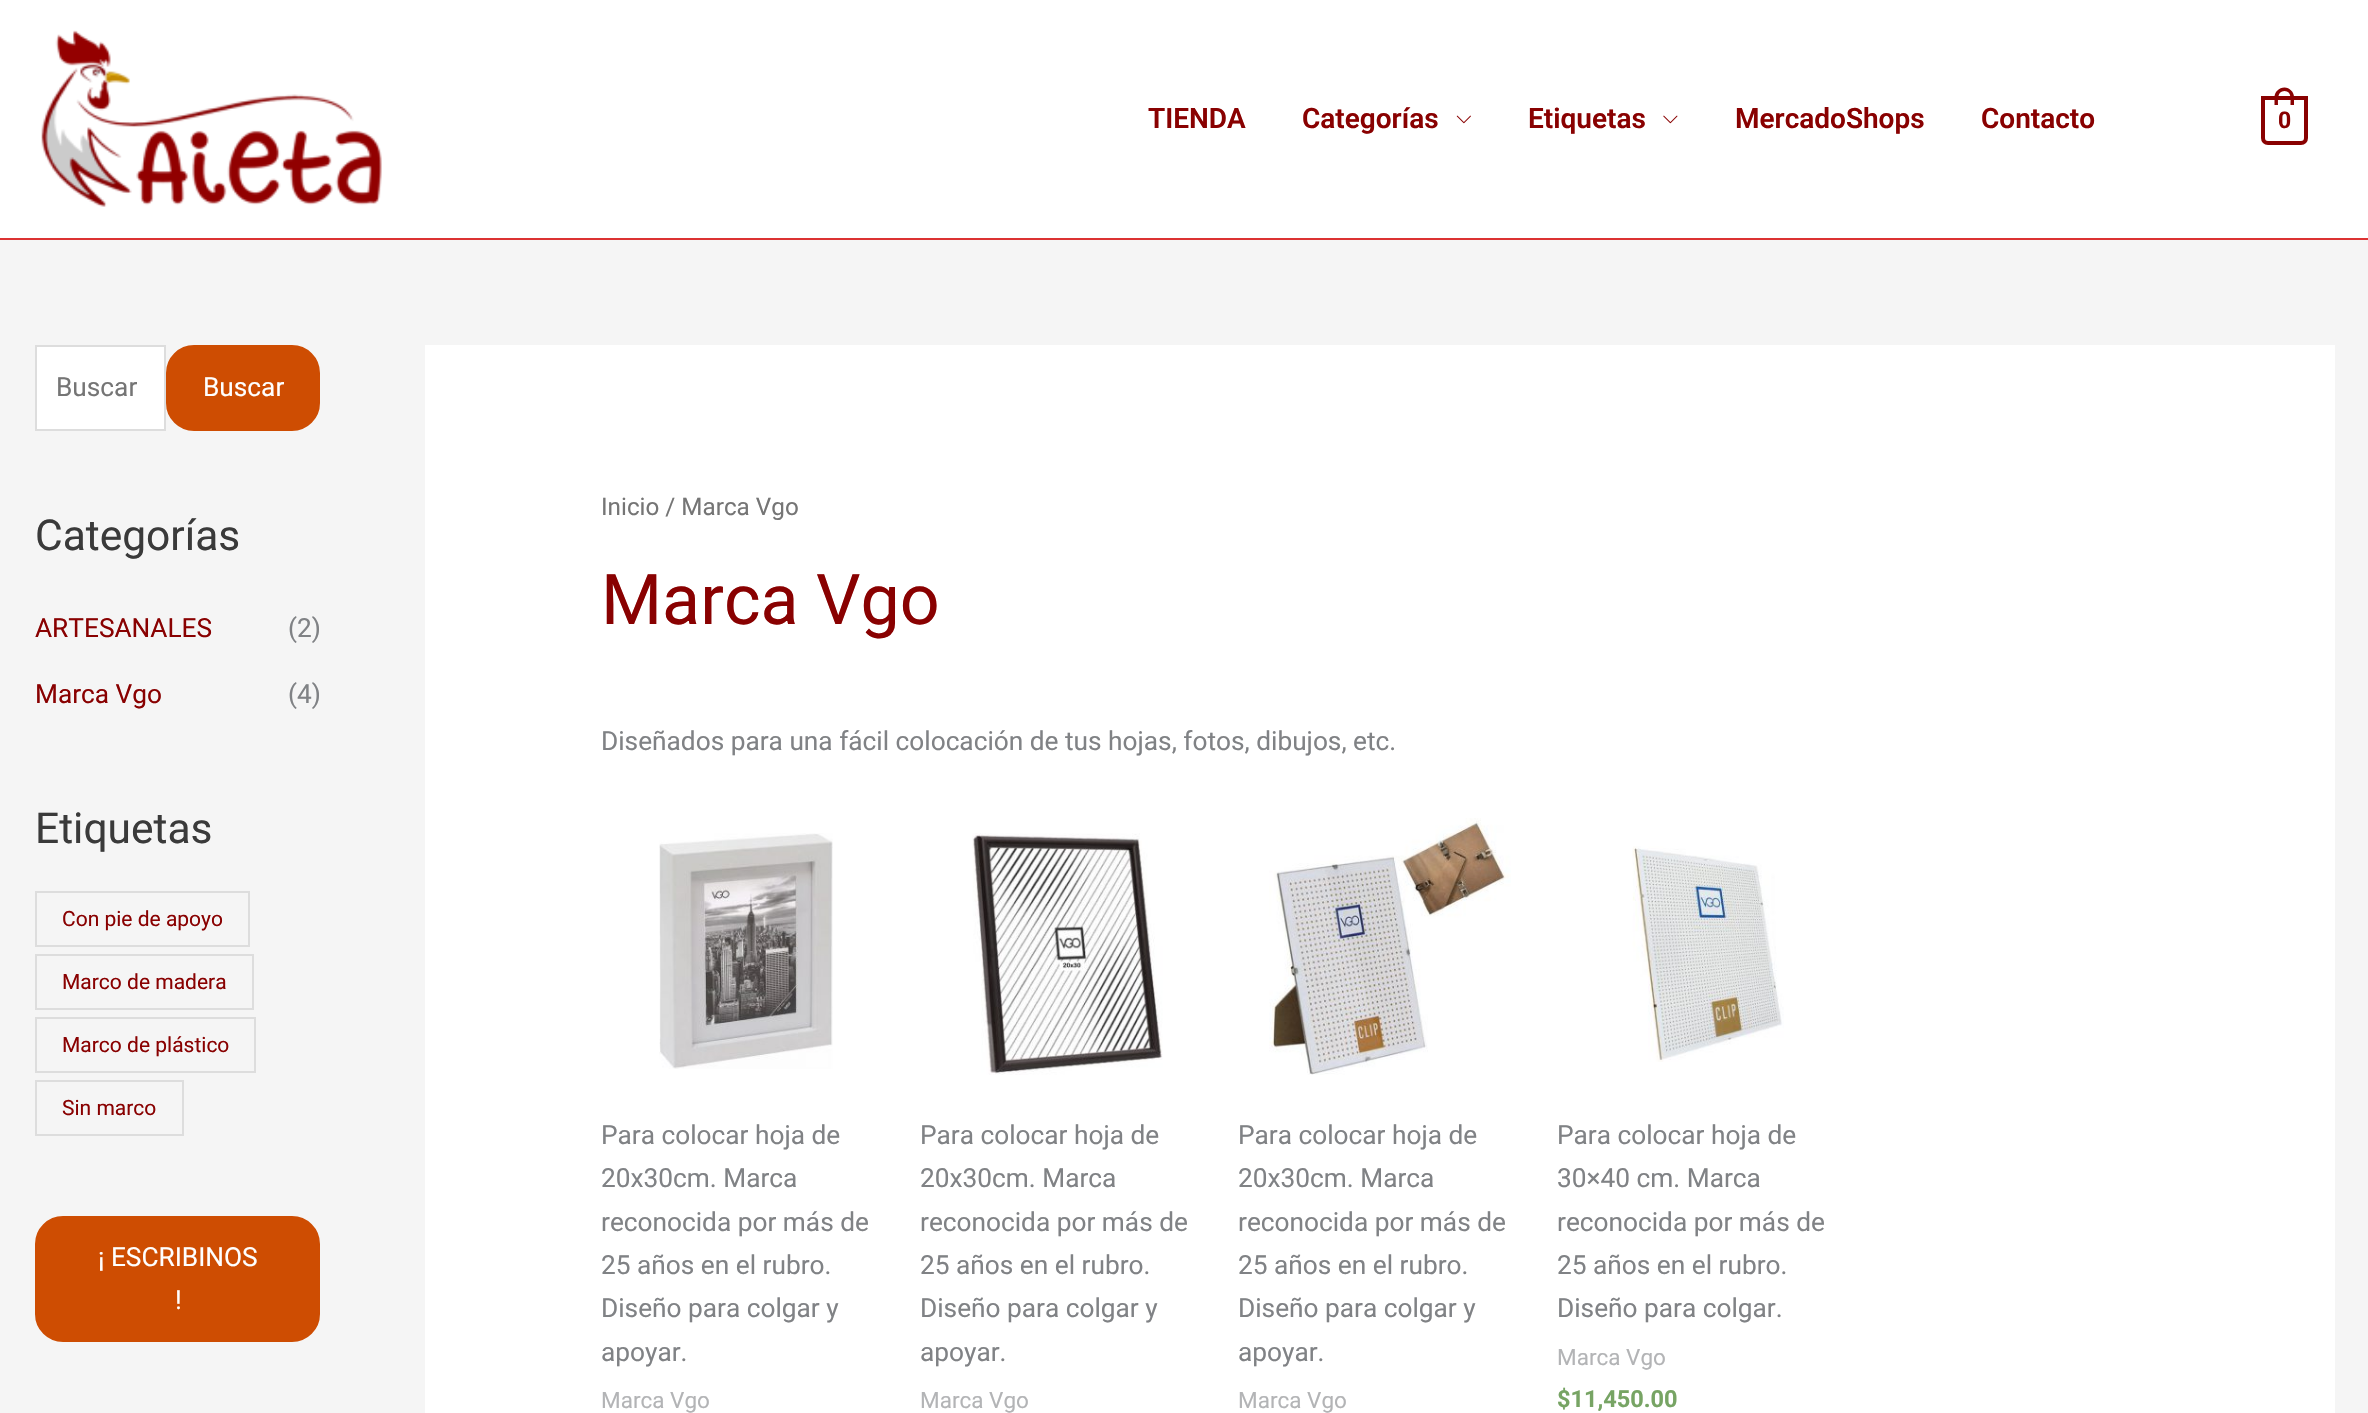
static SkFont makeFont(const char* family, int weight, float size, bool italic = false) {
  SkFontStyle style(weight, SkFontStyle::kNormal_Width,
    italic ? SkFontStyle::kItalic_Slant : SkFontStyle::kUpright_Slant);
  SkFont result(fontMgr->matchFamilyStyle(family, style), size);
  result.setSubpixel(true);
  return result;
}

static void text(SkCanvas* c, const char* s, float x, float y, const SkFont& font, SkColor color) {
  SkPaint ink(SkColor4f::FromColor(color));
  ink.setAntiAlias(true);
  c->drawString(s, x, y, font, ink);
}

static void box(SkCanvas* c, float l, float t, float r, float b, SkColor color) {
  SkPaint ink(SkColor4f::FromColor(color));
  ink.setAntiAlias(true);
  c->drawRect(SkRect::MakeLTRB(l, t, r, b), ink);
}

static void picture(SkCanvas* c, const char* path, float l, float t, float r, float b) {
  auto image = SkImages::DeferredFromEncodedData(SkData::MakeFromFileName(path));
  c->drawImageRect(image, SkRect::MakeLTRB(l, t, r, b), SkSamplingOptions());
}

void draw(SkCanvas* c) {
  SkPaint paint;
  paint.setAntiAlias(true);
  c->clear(0xfff5f5f5);
  box(c, 0, 0, 2368, 238, 0xffffffff);
  box(c, 0, 238, 2368, 240, 0xffdc3232);
  picture(c, "img_01.png", 41, 30, 382, 207);
  SkFont face1 = makeFont("Roboto", 600, 28);
  text(c, "TIENDA", 1148, 128, face1, 0xff890101);
  text(c, "Categorías", 1302, 128, face1, 0xff890101);
  picture(c, "img_02.png", 1456, 115, 1471, 124);
  text(c, "Etiquetas", 1528, 128, face1, 0xff890101);
  picture(c, "img_03.png", 1663, 115, 1678, 124);
  text(c, "MercadoShops", 1735, 128, face1, 0xff890101);
  text(c, "Contacto", 1981, 128, face1, 0xff890101);
  paint.setStyle(SkPaint::kStroke_Style);
  paint.setStrokeWidth(4);
  paint.setColor(0xff890101);
  c->drawPath(SkPathBuilder().moveTo(2263, 98).lineTo(2306, 98).lineTo(2306, 138).cubicTo(2306, 141, 2304, 143, 2301, 143).lineTo(2268, 143).cubicTo(2265, 143, 2263, 141, 2263, 138).close().detach(), paint);
  paint.setStyle(SkPaint::kFill_Style);
  c->drawPath(SkPathBuilder(SkPathFillType::kEvenOdd).moveTo(2284.5f, 87.5f).cubicTo(2289.5f, 87.5f, 2294, 92, 2294, 97).lineTo(2294, 105).lineTo(2274.5f, 105).lineTo(2274.5f, 97).cubicTo(2274.5f, 92, 2279, 87.5f, 2284.5f, 87.5f).close().moveTo(2284.5f, 91).cubicTo(2292, 91, 2290.5f, 100, 2290.5f, 105).lineTo(2278, 105).cubicTo(2278, 100, 2277, 91, 2284.5f, 91).close().detach(), paint);
  SkFont face2 = makeFont("Roboto", 700, 23);
  text(c, "0", 2278, 128, face2, 0xff890101);
  paint.setColor(0xffffffff);
  c->drawRect(SkRect::MakeLTRB(36, 346, 165, 430), paint);
  paint.setStyle(SkPaint::kStroke_Style);
  paint.setStrokeWidth(2);
  paint.setColor(0xffdddddd);
  c->drawRect(SkRect::MakeLTRB(36, 346, 165, 430), paint);
  SkFont face3 = makeFont("Roboto", 400, 26.25f);
  text(c, "Buscar", 56, 396, face3, 0xff757575);
  paint.setStyle(SkPaint::kFill_Style);
  paint.setColor(0xffce4d02);
  c->drawRoundRect(SkRect::MakeLTRB(167, 346, 319, 430), 27, 27, paint);
  paint.setStyle(SkPaint::kStroke_Style);
  c->drawRoundRect(SkRect::MakeLTRB(167, 346, 319, 430), 27, 27, paint);
  text(c, "Buscar", 203, 396, face3, 0xffffffff);
  SkFont face4 = makeFont("Roboto", 400, 42.5f);
  text(c, "Categorías", 35, 550, face4, 0xff3a3a3a);
  text(c, "ARTESANALES", 35, 637, face3, 0xff890101);
  text(c, "(2)", 288, 637, face3, 0xff808285);
  text(c, "Marca Vgo", 35, 703, face3, 0xff890101);
  text(c, "(4)", 288, 703, face3, 0xff808285);
  text(c, "Etiquetas", 35, 843, face4, 0xff3a3a3a);
  paint.setColor(0xffdddddd);
  c->drawRect(SkRect::MakeLTRB(36, 892, 249, 946), paint);
  SkFont face5 = makeFont("Roboto", 400, 21);
  text(c, "Con pie de apoyo", 62, 926, face5, 0xff890101);
  c->drawRect(SkRect::MakeLTRB(36, 955, 253, 1009), paint);
  text(c, "Marco de madera", 62, 989, face5, 0xff890101);
  c->drawRect(SkRect::MakeLTRB(36, 1018, 255, 1072), paint);
  text(c, "Marco de plástico", 62, 1052, face5, 0xff890101);
  c->drawRect(SkRect::MakeLTRB(36, 1081, 183, 1135), paint);
  text(c, "Sin marco", 62, 1115, face5, 0xff890101);
  paint.setStyle(SkPaint::kFill_Style);
  paint.setColor(0xffce4d02);
  c->drawRoundRect(SkRect::MakeLTRB(36, 1217, 319, 1341), 27, 27, paint);
  paint.setStyle(SkPaint::kStroke_Style);
  c->drawRoundRect(SkRect::MakeLTRB(36, 1217, 319, 1341), 27, 27, paint);
  text(c, "¡ ESCRIBINOS", 98, 1266, face3, 0xffffffff);
  text(c, "!", 175, 1309, face3, 0xffffffff);
  box(c, 425, 345, 2335, 1413, 0xffffffff);
  SkFont face6 = makeFont("Roboto", 400, 24.25f);
  text(c, "Inicio / Marca Vgo", 601, 515, face6, 0xff757575);
  SkFont face7 = makeFont("Roboto", 400, 70);
  text(c, "Marca Vgo", 601, 624, face7, 0xff890101);
  text(c, "Diseñados para una fácil colocación de tus hojas, fotos, dibujos, etc.", 601, 750, face3, 0xff808285);
  picture(c, "img_04.png", 659, 833, 833, 1069);
  text(c, "Para colocar hoja de", 601, 1144, face3, 0xff808285);
  text(c, "20x30cm. Marca", 601, 1187, face3, 0xff808285);
  text(c, "reconocida por más de", 601, 1231, face3, 0xff808285);
  text(c, "25 años en el rubro.", 601, 1274, face3, 0xff808285);
  text(c, "Diseño para colgar y", 601, 1317, face3, 0xff808285);
  text(c, "apoyar.", 601, 1361, face3, 0xff808285);
  SkFont face8 = makeFont("Roboto", 400, 22.5f);
  text(c, "Marca Vgo", 601, 1408, face8, 0xffb3b4b6);
  picture(c, "img_05.png", 972, 833, 1163, 1075);
  text(c, "Para colocar hoja de", 920, 1144, face3, 0xff808285);
  text(c, "20x30cm. Marca", 920, 1187, face3, 0xff808285);
  text(c, "reconocida por más de", 920, 1231, face3, 0xff808285);
  text(c, "25 años en el rubro.", 920, 1274, face3, 0xff808285);
  text(c, "Diseño para colgar y", 920, 1317, face3, 0xff808285);
  text(c, "apoyar.", 920, 1361, face3, 0xff808285);
  text(c, "Marca Vgo", 920, 1408, face8, 0xffb3b4b6);
  picture(c, "img_06.png", 1269, 818, 1511, 1075);
  text(c, "Para colocar hoja de", 1238, 1144, face3, 0xff808285);
  text(c, "20x30cm. Marca", 1238, 1187, face3, 0xff808285);
  text(c, "reconocida por más de", 1238, 1231, face3, 0xff808285);
  text(c, "25 años en el rubro.", 1238, 1274, face3, 0xff808285);
  text(c, "Diseño para colgar y", 1238, 1317, face3, 0xff808285);
  text(c, "apoyar.", 1238, 1361, face3, 0xff808285);
  text(c, "Marca Vgo", 1238, 1408, face8, 0xffb3b4b6);
  picture(c, "img_07.png", 1632, 846, 1784, 1062);
  text(c, "Para colocar hoja de", 1557, 1144, face3, 0xff808285);
  text(c, "30×40 cm. Marca", 1557, 1187, face3, 0xff808285);
  text(c, "reconocida por más de", 1557, 1231, face3, 0xff808285);
  text(c, "25 años en el rubro.", 1557, 1274, face3, 0xff808285);
  text(c, "Diseño para colgar.", 1557, 1317, face3, 0xff808285);
  text(c, "Marca Vgo", 1557, 1365, face8, 0xffb3b4b6);
  SkFont face9 = makeFont("Roboto", 700, 23.5f);
  text(c, "$11,450.00", 1557, 1407, face9, 0xff77a464);
}
